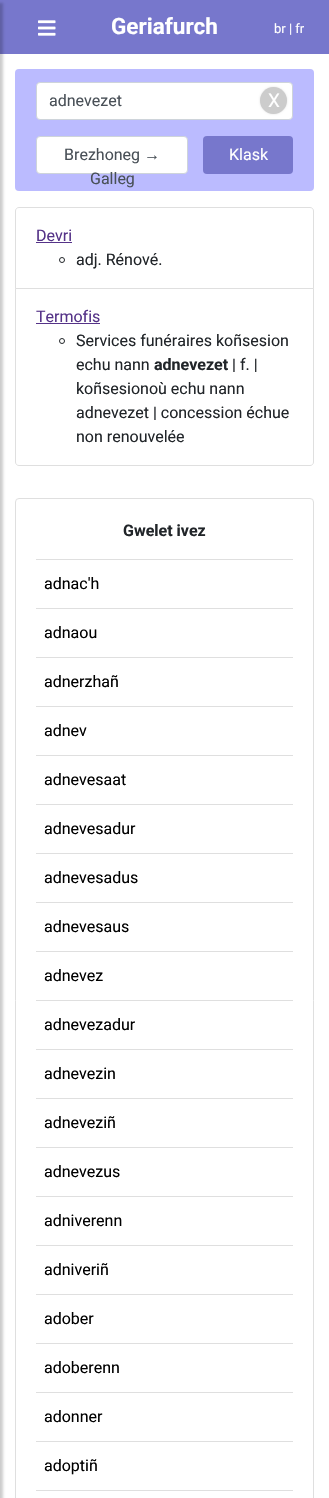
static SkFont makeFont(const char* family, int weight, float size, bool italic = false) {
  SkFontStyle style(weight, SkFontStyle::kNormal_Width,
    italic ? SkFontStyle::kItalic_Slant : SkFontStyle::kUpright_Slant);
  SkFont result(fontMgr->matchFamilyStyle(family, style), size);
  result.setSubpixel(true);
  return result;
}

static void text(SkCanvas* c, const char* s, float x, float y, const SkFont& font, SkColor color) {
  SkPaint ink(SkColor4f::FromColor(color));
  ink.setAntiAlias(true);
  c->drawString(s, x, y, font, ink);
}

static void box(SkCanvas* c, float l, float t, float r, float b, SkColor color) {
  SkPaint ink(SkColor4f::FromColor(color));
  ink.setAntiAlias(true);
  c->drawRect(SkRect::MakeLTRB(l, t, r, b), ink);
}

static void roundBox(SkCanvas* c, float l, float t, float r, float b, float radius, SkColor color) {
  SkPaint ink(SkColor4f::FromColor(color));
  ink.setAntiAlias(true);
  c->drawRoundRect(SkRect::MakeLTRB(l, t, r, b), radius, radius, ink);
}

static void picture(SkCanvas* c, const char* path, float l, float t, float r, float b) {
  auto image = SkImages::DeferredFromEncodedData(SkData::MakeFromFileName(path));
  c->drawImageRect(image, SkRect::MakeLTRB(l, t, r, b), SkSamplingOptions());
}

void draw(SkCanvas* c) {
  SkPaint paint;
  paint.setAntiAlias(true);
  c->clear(0xffffffff);
  box(c, 0, 0, 329, 54, 0xff7777cc);
  paint.setColor(0x33000000);
  paint.setMaskFilter(SkMaskFilter::MakeBlur(kNormal_SkBlurStyle, 1.5f));
  c->drawRect(SkRect::MakeLTRB(-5, 3, 3, 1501), paint);
  paint.setMaskFilter(nullptr);
  picture(c, "img_01.png", 38, 20, 56, 36);
  SkFont face1 = makeFont("Roboto", 700, 22.5f);
  text(c, "Geriafurch", 111, 34, face1, 0xffffffff);
  SkFont face2 = makeFont("Roboto", 400, 13);
  text(c, "br | fr", 274, 33, face2, 0xffffffff);
  roundBox(c, 15, 69, 314, 191, 4, 0xffbbbbff);
  paint.setColor(0xffffffff);
  c->drawRoundRect(SkRect::MakeLTRB(36.5f, 82.5f, 292.5f, 119.5f), 3.5f, 3.5f, paint);
  paint.setStyle(SkPaint::kStroke_Style);
  paint.setStrokeWidth(1);
  paint.setColor(0xffced4da);
  c->drawRoundRect(SkRect::MakeLTRB(36.5f, 82.5f, 292.5f, 119.5f), 3.5f, 3.5f, paint);
  SkFont face3 = makeFont("Roboto", 400, 16);
  text(c, "adnevezet", 49, 106, face3, 0xff495057);
  paint.setStyle(SkPaint::kFill_Style);
  paint.setColor(0xffdddddd);
  paint.setMaskFilter(SkMaskFilter::MakeBlur(kNormal_SkBlurStyle, 1));
  c->drawRoundRect(SkRect::MakeLTRB(260, 87, 287, 114), 13.5f, 13.5f, paint);
  paint.setMaskFilter(nullptr);
  paint.setColor(0xffcccccc);
  c->drawCircle(273.5f, 100.5f, 13.5f, paint);
  SkFont face4 = makeFont("Roboto", 400, 19);
  text(c, "X", 268, 107, face4, 0xffffffff);
  paint.setColor(0xffffffff);
  c->drawRoundRect(SkRect::MakeLTRB(36.5f, 136.5f, 187.5f, 173.5f), 3.5f, 3.5f, paint);
  paint.setStyle(SkPaint::kStroke_Style);
  paint.setColor(0xffced4da);
  c->drawRoundRect(SkRect::MakeLTRB(36.5f, 136.5f, 187.5f, 173.5f), 3.5f, 3.5f, paint);
  text(c, "Brezhoneg", 64, 160, face3, 0xff495057);
  SkFont face5 = makeFont("Liberation Sans", 400, 16);
  text(c, "→", 144, 160, face5, 0xff495057);
  text(c, "Galleg", 90, 184, face3, 0xff495057);
  roundBox(c, 203, 136, 293, 174, 4, 0xff7777cc);
  text(c, "Klask", 229, 160, face3, 0xffffffff);
  paint.setColor(0xffdfdfdf);
  c->drawPath(SkPathBuilder().moveTo(19, 207.5f).lineTo(310, 207.5f).cubicTo(312, 207.5f, 313.5f, 209, 313.5f, 211).lineTo(313.5f, 288.5f).lineTo(15.5f, 288.5f).lineTo(15.5f, 211).cubicTo(15.5f, 209, 17, 207.5f, 19, 207.5f).close().detach(), paint);
  text(c, "Devri", 36, 241, face3, 0xff553388);
  box(c, 36, 242, 72, 243, 0xff553388);
  paint.setColor(0xff212529);
  c->drawCircle(62, 260, 2.5f, paint);
  text(c, "adj. Rénové.", 76, 265, face3, 0xff212529);
  paint.setStyle(SkPaint::kFill_Style);
  paint.setColor(0xffffffff);
  c->drawPath(SkPathBuilder().moveTo(15.5f, 288.5f).lineTo(313.5f, 288.5f).lineTo(313.5f, 462).cubicTo(313.5f, 464, 312, 465.5f, 310, 465.5f).lineTo(19, 465.5f).cubicTo(17, 465.5f, 15.5f, 464, 15.5f, 462).close().detach(), paint);
  paint.setStyle(SkPaint::kStroke_Style);
  paint.setColor(0xffdfdfdf);
  c->drawPath(SkPathBuilder().moveTo(15.5f, 288.5f).lineTo(313.5f, 288.5f).lineTo(313.5f, 462).cubicTo(313.5f, 464, 312, 465.5f, 310, 465.5f).lineTo(19, 465.5f).cubicTo(17, 465.5f, 15.5f, 464, 15.5f, 462).close().detach(), paint);
  text(c, "Termofis", 36, 322, face3, 0xff553388);
  box(c, 36, 323, 100, 324, 0xff553388);
  paint.setColor(0xff212529);
  c->drawCircle(62, 341, 2.5f, paint);
  text(c, "Services funéraires koñsesion", 76, 346, face3, 0xff212529);
  text(c, "echu nann", 76, 370, face3, 0xff212529);
  SkFont face6 = makeFont("Roboto", 700, 16);
  text(c, "adnevezet", 154, 370, face6, 0xff212529);
  text(c, "| f. |", 232, 370, face3, 0xff212529);
  text(c, "koñsesionoù echu nann", 76, 394, face3, 0xff212529);
  text(c, "adnevezet | concession échue", 76, 418, face3, 0xff212529);
  text(c, "non renouvelée", 76, 442, face3, 0xff212529);
  paint.setColor(0xffdfdfdf);
  c->drawRoundRect(SkRect::MakeLTRB(15.5f, 498.5f, 313.5f, 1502.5f), 3.5f, 3.5f, paint);
  text(c, "Gwelet ivez", 123, 536, face6, 0xff212529);
  box(c, 36, 559, 293, 560, 0xffdfdfdf);
  text(c, "adnac'h", 44, 589, face3, 0xff000000);
  box(c, 36, 608, 293, 609, 0xffdfdfdf);
  text(c, "adnaou", 44, 638, face3, 0xff000000);
  box(c, 36, 657, 293, 658, 0xffdfdfdf);
  text(c, "adnerzhañ", 44, 687, face3, 0xff000000);
  box(c, 36, 706, 293, 707, 0xffdfdfdf);
  text(c, "adnev", 44, 736, face3, 0xff000000);
  box(c, 36, 755, 293, 756, 0xffdfdfdf);
  text(c, "adnevesaat", 44, 785, face3, 0xff000000);
  box(c, 36, 804, 293, 805, 0xffdfdfdf);
  text(c, "adnevesadur", 44, 834, face3, 0xff000000);
  box(c, 36, 853, 293, 854, 0xffdfdfdf);
  text(c, "adnevesadus", 44, 883, face3, 0xff000000);
  box(c, 36, 902, 293, 903, 0xffdfdfdf);
  text(c, "adnevesaus", 44, 932, face3, 0xff000000);
  box(c, 36, 951, 293, 952, 0xffdfdfdf);
  text(c, "adnevez", 44, 981, face3, 0xff000000);
  box(c, 36, 1000, 293, 1001, 0xffdfdfdf);
  text(c, "adnevezadur", 44, 1030, face3, 0xff000000);
  box(c, 36, 1049, 293, 1050, 0xffdfdfdf);
  text(c, "adnevezin", 44, 1079, face3, 0xff000000);
  box(c, 36, 1098, 293, 1099, 0xffdfdfdf);
  text(c, "adneveziñ", 44, 1128, face3, 0xff000000);
  box(c, 36, 1147, 293, 1148, 0xffdfdfdf);
  text(c, "adnevezus", 44, 1177, face3, 0xff000000);
  box(c, 36, 1196, 293, 1197, 0xffdfdfdf);
  text(c, "adniverenn", 44, 1226, face3, 0xff000000);
  box(c, 36, 1245, 293, 1246, 0xffdfdfdf);
  text(c, "adniveriñ", 44, 1275, face3, 0xff000000);
  box(c, 36, 1294, 293, 1295, 0xffdfdfdf);
  text(c, "adober", 44, 1324, face3, 0xff000000);
  box(c, 36, 1343, 293, 1344, 0xffdfdfdf);
  text(c, "adoberenn", 44, 1373, face3, 0xff000000);
  box(c, 36, 1392, 293, 1393, 0xffdfdfdf);
  text(c, "adonner", 44, 1422, face3, 0xff000000);
  box(c, 36, 1441, 293, 1442, 0xffdfdfdf);
  text(c, "adoptiñ", 44, 1471, face3, 0xff000000);
  box(c, 36, 1490, 293, 1491, 0xffdfdfdf);
}
